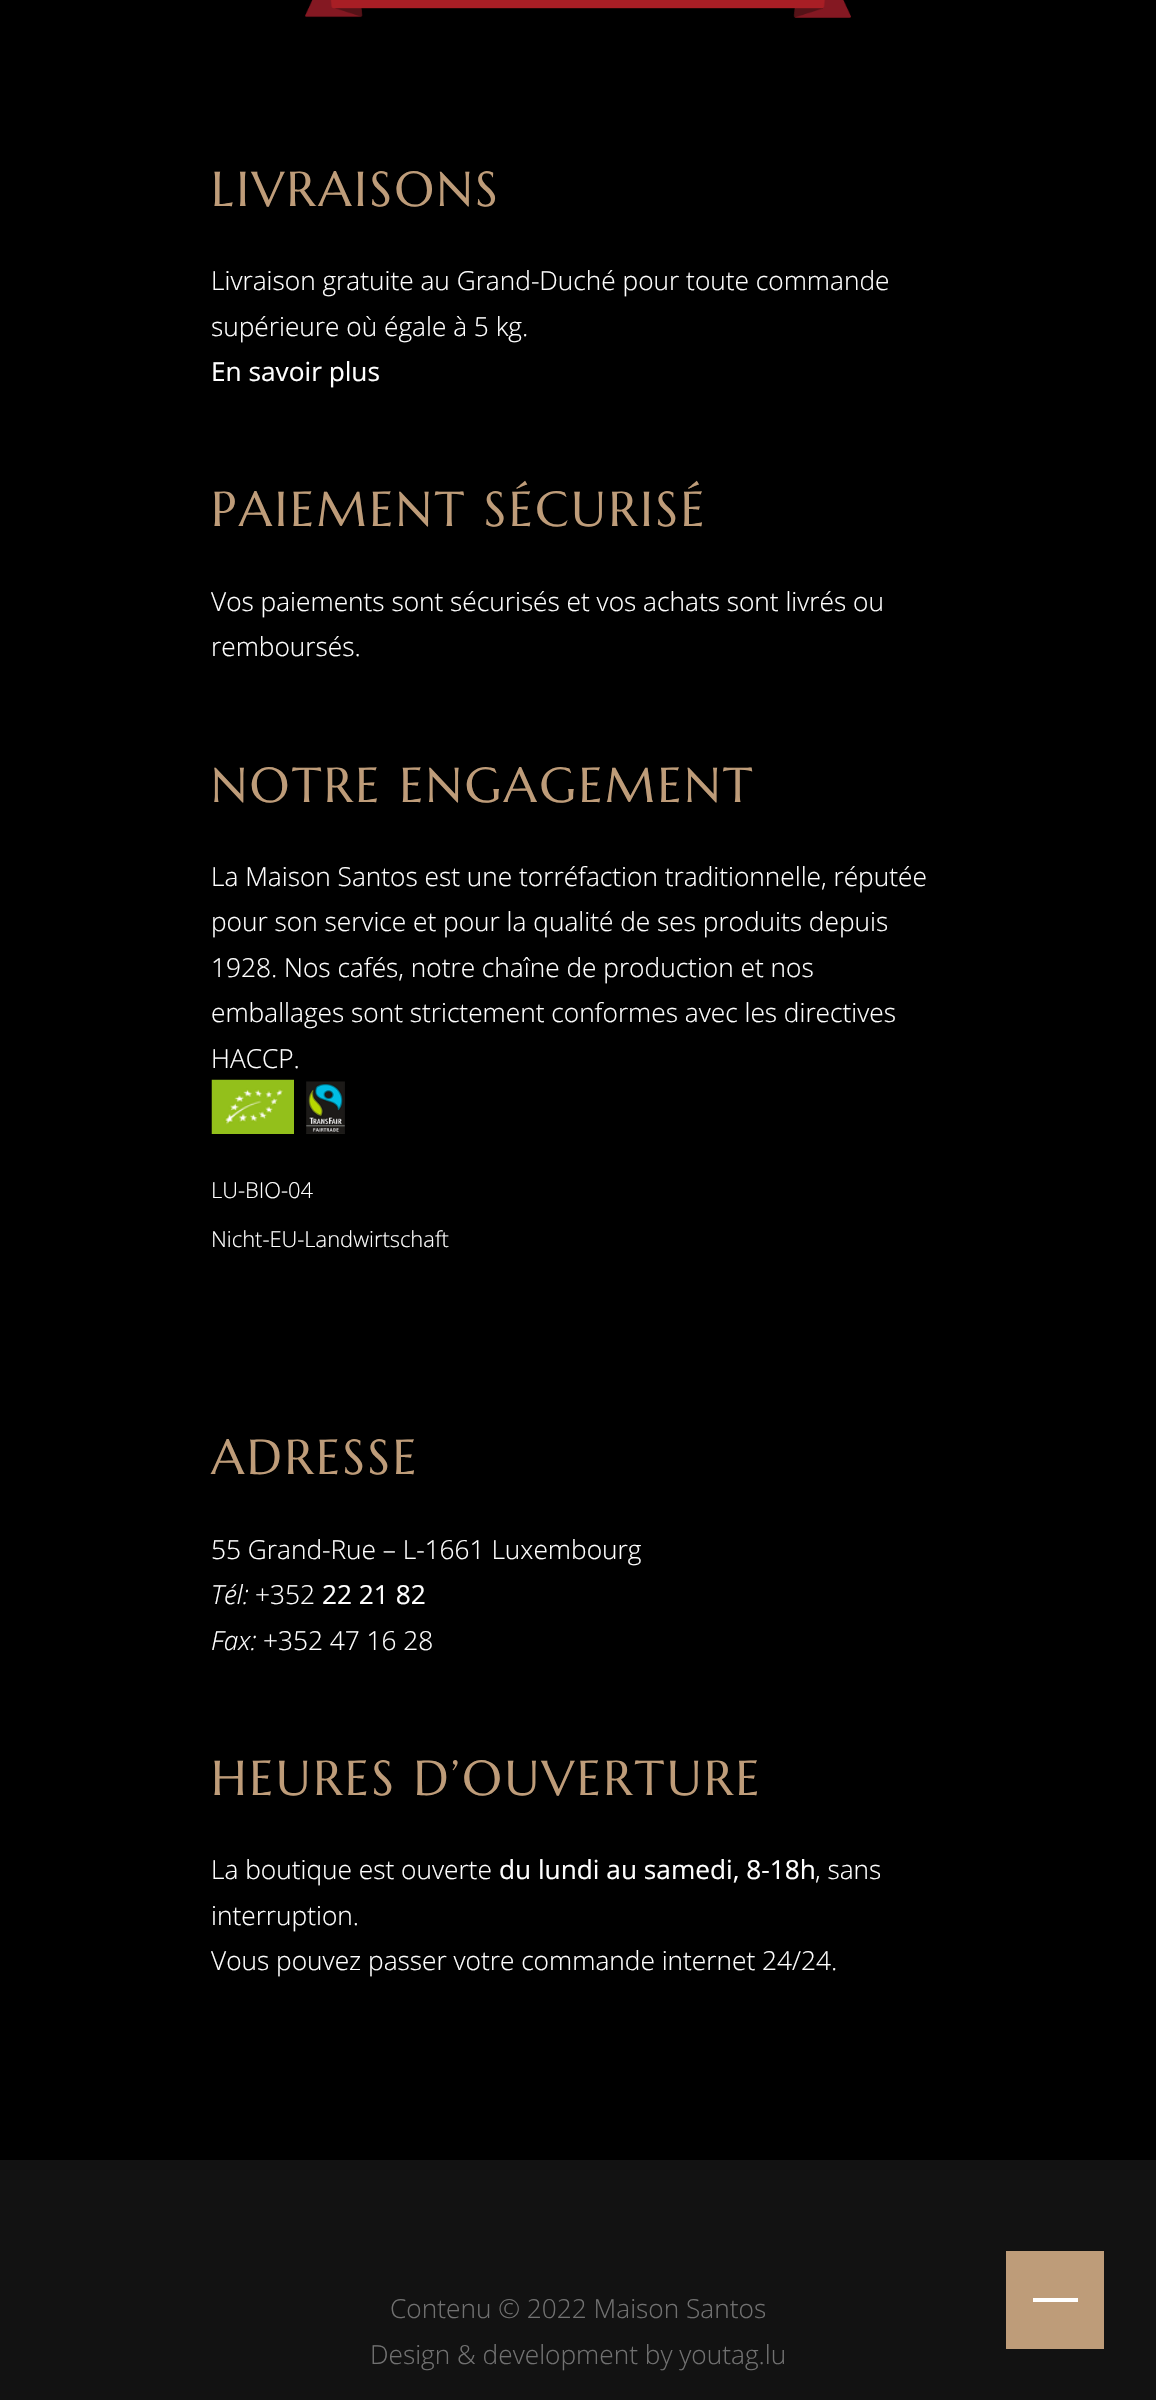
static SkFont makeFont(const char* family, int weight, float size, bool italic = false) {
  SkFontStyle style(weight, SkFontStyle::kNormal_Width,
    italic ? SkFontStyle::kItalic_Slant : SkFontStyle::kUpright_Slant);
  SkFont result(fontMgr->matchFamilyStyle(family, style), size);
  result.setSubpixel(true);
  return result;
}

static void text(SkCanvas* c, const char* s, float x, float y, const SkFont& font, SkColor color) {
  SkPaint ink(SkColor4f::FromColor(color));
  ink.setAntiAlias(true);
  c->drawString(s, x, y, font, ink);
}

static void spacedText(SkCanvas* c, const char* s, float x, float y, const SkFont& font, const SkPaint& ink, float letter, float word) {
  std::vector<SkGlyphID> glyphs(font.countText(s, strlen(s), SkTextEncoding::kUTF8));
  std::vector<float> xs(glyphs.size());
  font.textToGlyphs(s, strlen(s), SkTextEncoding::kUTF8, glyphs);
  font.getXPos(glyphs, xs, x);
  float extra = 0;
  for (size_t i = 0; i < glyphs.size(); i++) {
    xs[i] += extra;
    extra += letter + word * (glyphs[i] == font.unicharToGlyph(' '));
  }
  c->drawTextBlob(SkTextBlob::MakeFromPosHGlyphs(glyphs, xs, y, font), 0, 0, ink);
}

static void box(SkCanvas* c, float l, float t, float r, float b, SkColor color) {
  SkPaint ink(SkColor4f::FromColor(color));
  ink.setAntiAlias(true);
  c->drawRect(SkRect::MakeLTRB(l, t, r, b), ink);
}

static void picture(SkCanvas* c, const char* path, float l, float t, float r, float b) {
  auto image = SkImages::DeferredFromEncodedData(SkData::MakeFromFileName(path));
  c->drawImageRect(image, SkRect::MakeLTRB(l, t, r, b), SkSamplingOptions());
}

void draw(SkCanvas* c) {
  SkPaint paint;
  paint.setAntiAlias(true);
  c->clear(0xff000000);
  picture(c, "img_01.png", 305, 0, 851, 18);
  SkFont face1 = makeFont("Marcellus", 400, 49);
  paint.setColor(0xffbe9c79);
  spacedText(c, "LIVRAISONS", 211, 206, face1, paint, 2.6f, 0);
  SkFont face2 = makeFont("Open Sans", 300, 26.25f);
  text(c, "Livraison gratuite au Grand-Duché pour toute commande", 211, 290, face2, 0xffffffff);
  text(c, "supérieure où égale à 5 kg.", 211, 336, face2, 0xffffffff);
  SkFont face3 = makeFont("Open Sans", 400, 26.25f);
  text(c, "En savoir plus", 211, 381, face3, 0xffffffff);
  spacedText(c, "PAIEMENT SÉCURISÉ", 211, 526, face1, paint, 2.6f, 0);
  text(c, "Vos paiements sont sécurisés et vos achats sont livrés ou", 211, 611, face2, 0xffffffff);
  text(c, "remboursés.", 211, 656, face2, 0xffffffff);
  spacedText(c, "NOTRE ENGAGEMENT", 211, 802, face1, paint, 2.6f, 0);
  text(c, "La Maison Santos est une torréfaction traditionnelle, réputée", 211, 886, face2, 0xffffffff);
  text(c, "pour son service et pour la qualité de ses produits depuis", 211, 931, face2, 0xffffffff);
  text(c, "1928. Nos cafés, notre chaîne de production et nos", 211, 977, face2, 0xffffffff);
  text(c, "emballages sont strictement conformes avec les directives", 211, 1022, face2, 0xffffffff);
  text(c, "HACCP.", 211, 1068, face2, 0xffffffff);
  picture(c, "img_02.png", 211, 1079, 294, 1134);
  picture(c, "img_03.png", 306, 1081, 345, 1134);
  SkFont face4 = makeFont("Open Sans", 300, 21.9f);
  text(c, "LU-BIO-04", 211, 1198, face4, 0xffffffff);
  text(c, "Nicht-EU-Landwirtschaft", 211, 1247, face4, 0xffffffff);
  spacedText(c, "ADRESSE", 211, 1474, face1, paint, 2.6f, 0);
  text(c, "55 Grand-Rue – L-1661 Luxembourg", 211, 1559, face2, 0xffffffff);
  SkFont face5 = makeFont("Open Sans", 300, 26.25f, true);
  text(c, "Tél:", 211, 1604, face5, 0xffffffff);
  text(c, "+352", 255, 1604, face2, 0xffffffff);
  text(c, "22 21 82", 322, 1604, face3, 0xffffffff);
  text(c, "Fax:", 211, 1650, face5, 0xffffffff);
  text(c, "+352 47 16 28", 263, 1650, face2, 0xffffffff);
  spacedText(c, "HEURES D’OUVERTURE", 211, 1795, face1, paint, 2.6f, 0);
  text(c, "La boutique est ouverte", 211, 1879, face2, 0xffffffff);
  text(c, "du lundi au samedi, 8-18h", 499, 1879, face3, 0xffffffff);
  text(c, ", sans", 815, 1879, face2, 0xffffffff);
  text(c, "interruption.", 211, 1925, face2, 0xffffffff);
  text(c, "Vous pouvez passer votre commande internet 24/24.", 211, 1970, face2, 0xffffffff);
  box(c, 0, 2160, 1156, 2400, 0xff121212);
  text(c, "Contenu © 2022 Maison Santos", 390, 2318, face2, 0xff717171);
  text(c, "Design & development by youtag.lu", 370, 2364, face2, 0xff717171);
  box(c, 1006, 2251, 1104, 2349, 0xffbe9c79);
  box(c, 1033, 2298, 1078, 2302, 0xffffffff);
}
